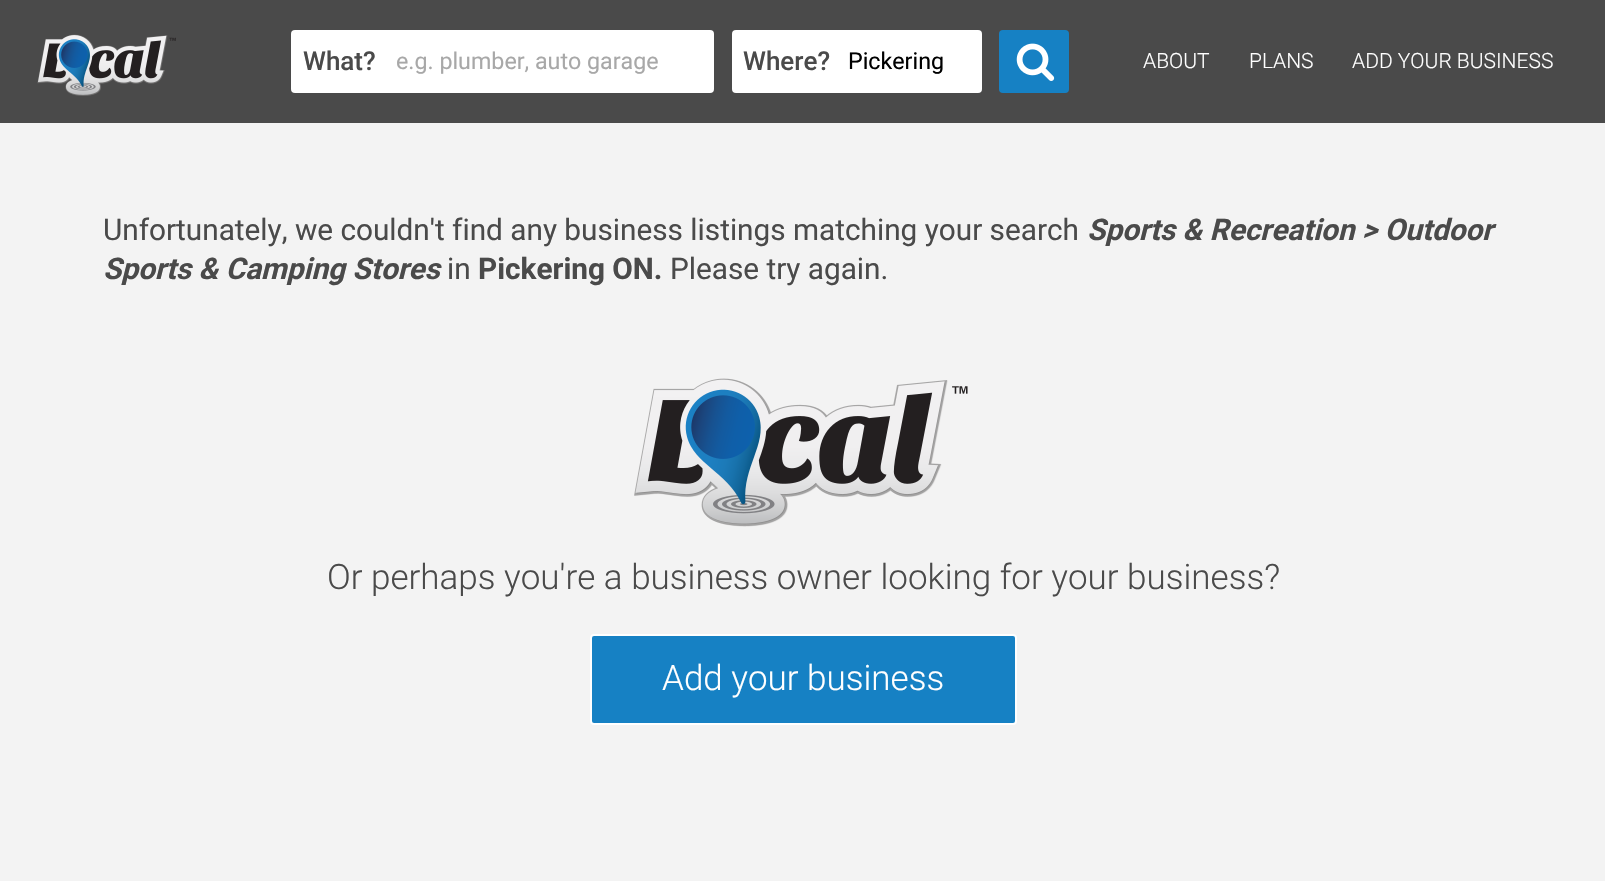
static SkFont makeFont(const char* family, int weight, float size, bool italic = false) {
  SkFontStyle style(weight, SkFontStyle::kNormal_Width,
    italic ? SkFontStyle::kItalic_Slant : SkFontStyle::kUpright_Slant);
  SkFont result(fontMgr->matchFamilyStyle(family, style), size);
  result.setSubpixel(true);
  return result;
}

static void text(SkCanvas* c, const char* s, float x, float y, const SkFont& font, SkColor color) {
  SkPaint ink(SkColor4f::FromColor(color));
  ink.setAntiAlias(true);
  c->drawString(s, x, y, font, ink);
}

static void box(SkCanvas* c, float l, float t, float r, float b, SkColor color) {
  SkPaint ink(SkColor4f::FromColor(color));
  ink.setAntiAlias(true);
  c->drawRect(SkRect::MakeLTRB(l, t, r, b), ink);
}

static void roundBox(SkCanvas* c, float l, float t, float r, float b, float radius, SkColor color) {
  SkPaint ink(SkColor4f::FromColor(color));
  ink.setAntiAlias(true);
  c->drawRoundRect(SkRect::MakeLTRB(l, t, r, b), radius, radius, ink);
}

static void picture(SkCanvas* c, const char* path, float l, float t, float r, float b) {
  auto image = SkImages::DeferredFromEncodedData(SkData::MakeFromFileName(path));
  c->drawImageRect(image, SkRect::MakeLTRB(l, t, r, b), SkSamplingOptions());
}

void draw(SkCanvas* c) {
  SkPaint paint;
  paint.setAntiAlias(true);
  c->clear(0xfff3f3f3);
  box(c, 0, 0, 1605, 123, 0xff4a4a4a);
  picture(c, "img_01.png", 37, 34, 176, 96);
  roundBox(c, 291, 30, 714, 93, 4, 0xffffffff);
  SkFont face1 = makeFont("Roboto", 500, 26);
  text(c, "What?", 303, 70, face1, 0xff4a4a4a);
  SkFont face2 = makeFont("Roboto", 400, 23.25f);
  text(c, "e.g. plumber, auto garage", 396, 69, face2, 0xffa8a8a8);
  roundBox(c, 732, 30, 982, 93, 4, 0xffffffff);
  text(c, "Where?", 743, 70, face1, 0xff4a4a4a);
  text(c, "Pickering", 848, 69, face2, 0xff000000);
  roundBox(c, 999, 30, 1069, 93, 4, 0xff1681c4);
  picture(c, "img_02.png", 1016, 43, 1055, 81);
  SkFont face3 = makeFont("Roboto", 300, 21);
  text(c, "ABOUT", 1143, 68, face3, 0xffffffff);
  text(c, "PLANS", 1249, 68, face3, 0xffffffff);
  text(c, "ADD YOUR BUSINESS", 1352, 68, face3, 0xffffffff);
  SkFont face4 = makeFont("Roboto", 400, 29.75f);
  text(c, "Unfortunately, we couldn't find any business listings matching your search", 103, 240, face4, 0xff4a4a4a);
  SkFont face5 = makeFont("Roboto", 700, 29.75f, true);
  text(c, "Sports & Recreation > Outdoor", 1087, 240, face5, 0xff4a4a4a);
  text(c, "Sports & Camping Stores", 103, 279, face5, 0xff4a4a4a);
  text(c, "in", 447, 279, face4, 0xff4a4a4a);
  SkFont face6 = makeFont("Roboto", 700, 29.75f);
  text(c, "Pickering ON.", 478, 279, face6, 0xff4a4a4a);
  text(c, "Please try again.", 670, 279, face4, 0xff4a4a4a);
  picture(c, "img_03.png", 634, 378, 968, 527);
  SkFont face7 = makeFont("Roboto", 300, 35);
  text(c, "Or perhaps you're a business owner looking for your business?", 327, 589, face7, 0xff4a4a4a);
  paint.setColor(0xff1681c4);
  c->drawRoundRect(SkRect::MakeLTRB(591, 635, 1016, 724), 3, 3, paint);
  paint.setStyle(SkPaint::kStroke_Style);
  paint.setStrokeWidth(2);
  paint.setColor(0xffffffff);
  c->drawRoundRect(SkRect::MakeLTRB(591, 635, 1016, 724), 3, 3, paint);
  text(c, "Add your business", 662, 690, face7, 0xffffffff);
}
